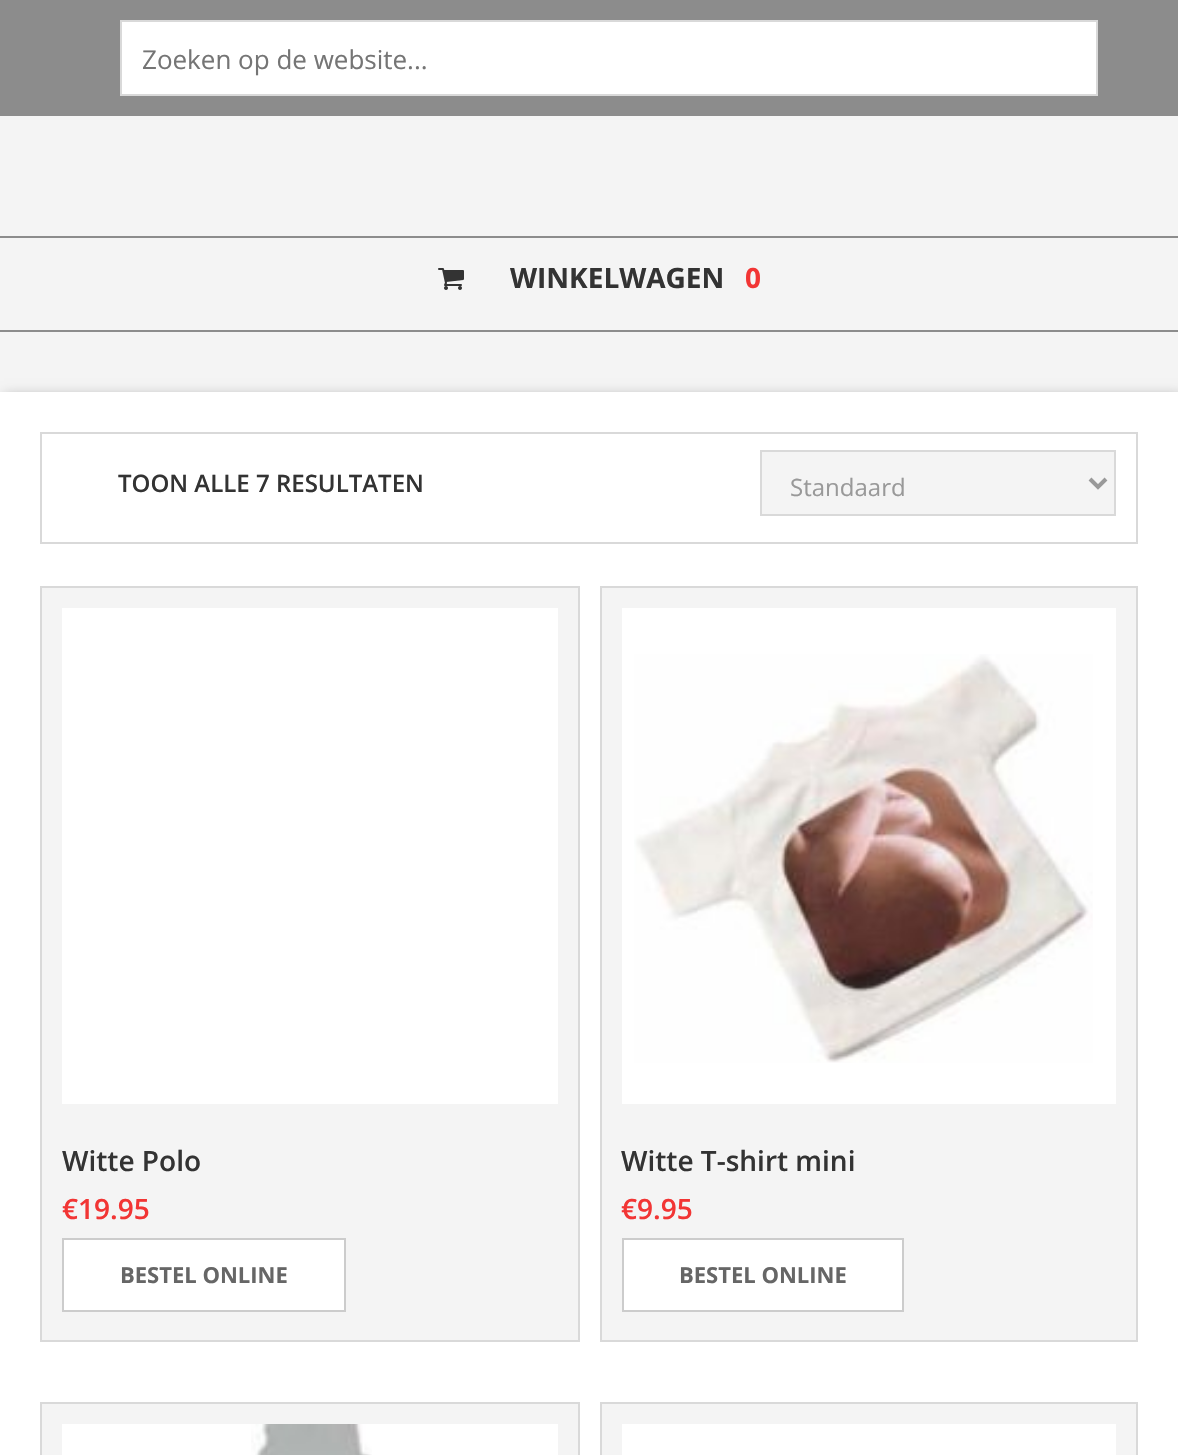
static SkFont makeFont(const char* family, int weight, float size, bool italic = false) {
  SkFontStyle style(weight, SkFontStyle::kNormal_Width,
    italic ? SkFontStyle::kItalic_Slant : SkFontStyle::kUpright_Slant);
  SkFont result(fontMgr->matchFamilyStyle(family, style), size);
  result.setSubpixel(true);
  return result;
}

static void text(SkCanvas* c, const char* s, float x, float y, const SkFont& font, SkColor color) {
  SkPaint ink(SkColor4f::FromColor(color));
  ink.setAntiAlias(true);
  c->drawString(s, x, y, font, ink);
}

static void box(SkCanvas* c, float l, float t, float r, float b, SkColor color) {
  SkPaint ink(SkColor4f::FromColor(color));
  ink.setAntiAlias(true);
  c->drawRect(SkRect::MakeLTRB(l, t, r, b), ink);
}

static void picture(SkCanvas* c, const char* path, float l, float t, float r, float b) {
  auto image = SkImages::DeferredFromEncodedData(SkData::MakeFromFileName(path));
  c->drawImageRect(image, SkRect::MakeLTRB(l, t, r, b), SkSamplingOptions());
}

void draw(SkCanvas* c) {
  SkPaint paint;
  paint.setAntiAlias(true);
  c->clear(0xff8c8c8c);
  paint.setColor(0xffffffff);
  c->drawRect(SkRect::MakeLTRB(121, 21, 1097, 95), paint);
  paint.setStyle(SkPaint::kStroke_Style);
  paint.setStrokeWidth(2);
  paint.setColor(0xffd9d9d9);
  c->drawRect(SkRect::MakeLTRB(121, 21, 1097, 95), paint);
  SkFont face1 = makeFont("Open Sans", 400, 26);
  text(c, "Zoeken op de website...", 142, 69, face1, 0xff757575);
  box(c, 0, 116, 1178, 236, 0xfff4f4f4);
  box(c, 0, 238, 1178, 330, 0xfff4f4f4);
  picture(c, "img_01.png", 438, 268, 464, 290);
  SkFont face2 = makeFont("Open Sans", 700, 28);
  text(c, "WINKELWAGEN", 510, 288, face2, 0xff333333);
  text(c, "0", 745, 288, face2, 0xfff23534);
  box(c, 0, 332, 1178, 392, 0xfff4f4f4);
  paint.setStyle(SkPaint::kFill_Style);
  paint.setColor(0x54000000);
  paint.setMaskFilter(SkMaskFilter::MakeBlur(kNormal_SkBlurStyle, 6));
  c->drawRect(SkRect::MakeLTRB(4, 396, 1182, 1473), paint);
  paint.setMaskFilter(nullptr);
  box(c, 0, 392, 1178, 1455, 0xffffffff);
  paint.setStyle(SkPaint::kStroke_Style);
  paint.setColor(0xffd9d9d9);
  c->drawRect(SkRect::MakeLTRB(41, 433, 1137, 543), paint);
  SkFont face3 = makeFont("Open Sans", 600, 24);
  text(c, "TOON ALLE 7 RESULTATEN", 118, 492, face3, 0xff333333);
  paint.setStyle(SkPaint::kFill_Style);
  paint.setColor(0xfff4f4f4);
  c->drawRect(SkRect::MakeLTRB(761, 451, 1115, 515), paint);
  paint.setStyle(SkPaint::kStroke_Style);
  paint.setColor(0xffd9d9d9);
  c->drawRect(SkRect::MakeLTRB(761, 451, 1115, 515), paint);
  paint.setStrokeWidth(4);
  paint.setColor(0xff999999);
  c->drawPath(SkPathBuilder().moveTo(1090, 479).lineTo(1098, 487).lineTo(1106, 479).detach(), paint);
  SkFont face4 = makeFont("Open Sans", 400, 24);
  text(c, "Standaard", 790, 496, face4, 0xff999999);
  paint.setStyle(SkPaint::kFill_Style);
  paint.setColor(0xfff4f4f4);
  c->drawRect(SkRect::MakeLTRB(41, 587, 579, 1341), paint);
  paint.setStyle(SkPaint::kStroke_Style);
  paint.setStrokeWidth(2);
  paint.setColor(0xffd9d9d9);
  c->drawRect(SkRect::MakeLTRB(41, 587, 579, 1341), paint);
  box(c, 62, 608, 558, 1104, 0xffffffff);
  SkFont face5 = makeFont("Open Sans", 600, 28);
  text(c, "Witte Polo", 62, 1171, face5, 0xff333333);
  text(c, "€19.95", 62, 1219, face5, 0xfff23534);
  paint.setStyle(SkPaint::kFill_Style);
  paint.setColor(0xffffffff);
  c->drawRect(SkRect::MakeLTRB(63, 1239, 345, 1311), paint);
  paint.setStyle(SkPaint::kStroke_Style);
  paint.setColor(0xffcccccc);
  c->drawRect(SkRect::MakeLTRB(63, 1239, 345, 1311), paint);
  SkFont face6 = makeFont("Open Sans", 700, 22);
  text(c, "BESTEL ONLINE", 120, 1283, face6, 0xff666666);
  paint.setStyle(SkPaint::kFill_Style);
  paint.setColor(0xfff4f4f4);
  c->drawRect(SkRect::MakeLTRB(601, 587, 1137, 1341), paint);
  paint.setStyle(SkPaint::kStroke_Style);
  paint.setColor(0xffd9d9d9);
  c->drawRect(SkRect::MakeLTRB(601, 587, 1137, 1341), paint);
  box(c, 622, 608, 1116, 1104, 0xffffffff);
  picture(c, "img_02.png", 634, 654, 1093, 1063);
  text(c, "Witte T-shirt mini", 621, 1171, face5, 0xff333333);
  text(c, "€9.95", 621, 1219, face5, 0xfff23534);
  paint.setStyle(SkPaint::kFill_Style);
  paint.setColor(0xffffffff);
  c->drawRect(SkRect::MakeLTRB(623, 1239, 903, 1311), paint);
  paint.setStyle(SkPaint::kStroke_Style);
  paint.setColor(0xffcccccc);
  c->drawRect(SkRect::MakeLTRB(623, 1239, 903, 1311), paint);
  text(c, "BESTEL ONLINE", 679, 1283, face6, 0xff666666);
  paint.setStyle(SkPaint::kFill_Style);
  paint.setColor(0xfff4f4f4);
  c->drawRect(SkRect::MakeLTRB(41, 1403, 579, 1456), paint);
  paint.setStyle(SkPaint::kStroke_Style);
  paint.setColor(0xffd9d9d9);
  c->drawRect(SkRect::MakeLTRB(41, 1403, 579, 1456), paint);
  box(c, 62, 1424, 558, 1455, 0xffffffff);
  picture(c, "img_03.png", 251, 1424, 372, 1455);
  paint.setStyle(SkPaint::kFill_Style);
  paint.setColor(0xfff4f4f4);
  c->drawRect(SkRect::MakeLTRB(601, 1403, 1137, 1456), paint);
  paint.setStyle(SkPaint::kStroke_Style);
  paint.setColor(0xffd9d9d9);
  c->drawRect(SkRect::MakeLTRB(601, 1403, 1137, 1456), paint);
  box(c, 622, 1424, 1116, 1455, 0xffffffff);
}
